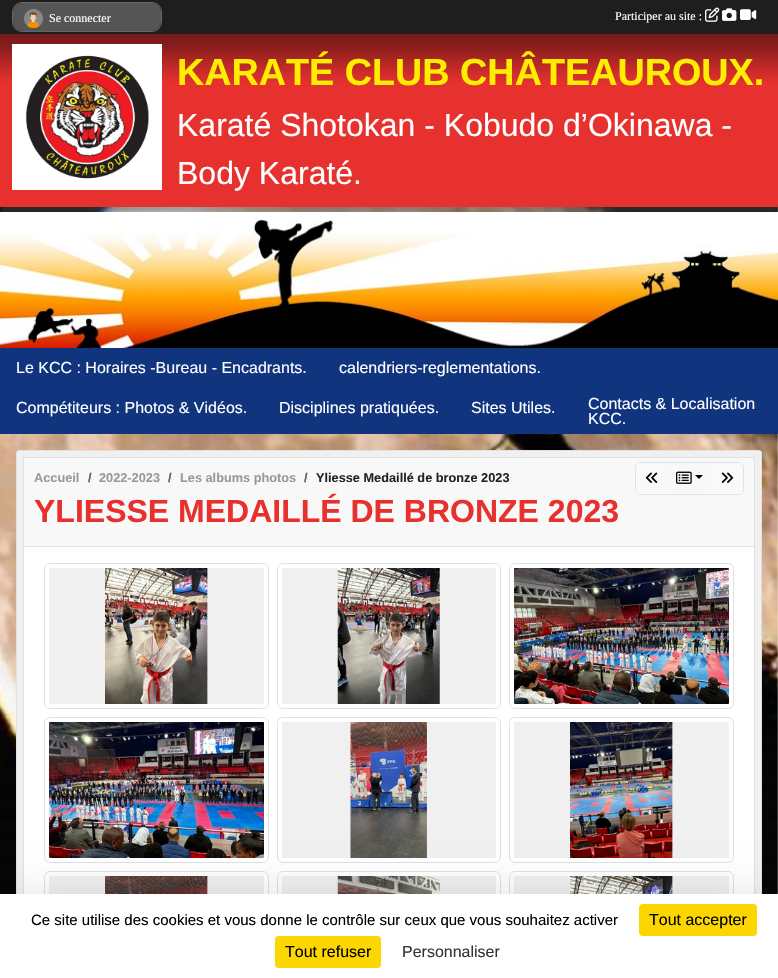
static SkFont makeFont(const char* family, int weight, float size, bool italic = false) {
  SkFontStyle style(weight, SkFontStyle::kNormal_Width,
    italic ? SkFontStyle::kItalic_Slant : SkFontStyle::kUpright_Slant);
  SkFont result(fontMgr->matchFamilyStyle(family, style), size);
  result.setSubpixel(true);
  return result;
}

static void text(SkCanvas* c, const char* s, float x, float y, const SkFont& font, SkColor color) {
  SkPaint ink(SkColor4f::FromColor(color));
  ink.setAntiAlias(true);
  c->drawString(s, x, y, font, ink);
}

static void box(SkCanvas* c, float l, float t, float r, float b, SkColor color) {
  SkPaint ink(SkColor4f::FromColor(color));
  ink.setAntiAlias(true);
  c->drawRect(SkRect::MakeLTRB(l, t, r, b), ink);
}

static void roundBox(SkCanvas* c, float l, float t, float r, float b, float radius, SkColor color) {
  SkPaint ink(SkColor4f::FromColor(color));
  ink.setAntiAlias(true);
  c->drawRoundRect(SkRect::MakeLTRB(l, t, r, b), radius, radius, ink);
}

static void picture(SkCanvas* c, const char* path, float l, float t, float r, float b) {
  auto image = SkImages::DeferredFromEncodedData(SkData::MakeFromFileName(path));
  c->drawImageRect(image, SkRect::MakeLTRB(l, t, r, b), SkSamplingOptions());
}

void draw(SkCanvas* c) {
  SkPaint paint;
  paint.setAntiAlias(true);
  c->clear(0xffffffff);
  picture(c, "img_01.png", 0, 207, 778, 894);
  paint.setColor(0x80505050);
  paint.setMaskFilter(SkMaskFilter::MakeBlur(kNormal_SkBlurStyle, 2.5f));
  c->drawRect(SkRect::MakeLTRB(0, 41, 778, 214), paint);
  paint.setMaskFilter(nullptr);
  box(c, 0, 0, 778, 34, 0xff1e1e1e);
  paint.setStyle(SkPaint::kStroke_Style);
  paint.setStrokeWidth(1);
  paint.setColor(0xff666666);
  c->drawRoundRect(SkRect::MakeLTRB(12.5f, 2.5f, 161.5f, 31.5f), 9.5f, 9.5f, paint);
  roundBox(c, 13, 3, 161, 31, 9, 0xff555555);
  picture(c, "img_02.png", 24, 9, 43, 28);
  SkFont face1 = makeFont("Liberation Serif", 400, 12);
  text(c, "Se connecter", 49, 22, face1, 0xffffffff);
  text(c, "Participer au site :", 615, 20, face1, 0xffffffff);
  picture(c, "img_03.png", 705, 7, 720, 22);
  picture(c, "img_04.png", 722, 8, 737, 21);
  picture(c, "img_05.png", 740, 9, 757, 20);
  box(c, 0, 34, 778, 207, 0xffe6312e);
  picture(c, "img_06.png", 0, 34, 778, 82);
  picture(c, "img_07.png", 12, 44, 162, 190);
  SkFont face2 = makeFont("Liberation Sans", 700, 37.75f);
  text(c, "KARATÉ CLUB CHÂTEAUROUX.", 177, 85, face2, 0xffffee00);
  SkFont face3 = makeFont("Liberation Sans", 400, 32);
  text(c, "Karaté Shotokan - Kobudo d’Okinawa -", 177, 136, face3, 0xffffffff);
  text(c, "Body Karaté.", 177, 184, face3, 0xffffffff);
  picture(c, "img_08.png", 0, 212, 778, 348);
  box(c, 0, 348, 778, 434, 0xff10357e);
  SkFont face4 = makeFont("Liberation Sans", 400, 16);
  text(c, "Le KCC : Horaires -Bureau - Encadrants.", 16, 373, face4, 0xffffffff);
  text(c, "calendriers-reglementations.", 339, 373, face4, 0xffffffff);
  text(c, "Compétiteurs : Photos & Vidéos.", 16, 413, face4, 0xffffffff);
  text(c, "Disciplines pratiquées.", 279, 413, face4, 0xffffffff);
  text(c, "Sites Utiles.", 471, 413, face4, 0xffffffff);
  text(c, "Contacts & Localisation", 588, 409, face4, 0xffffffff);
  text(c, "KCC.", 588, 424, face4, 0xffffffff);
  paint.setStyle(SkPaint::kFill_Style);
  paint.setColor(0xfff0f0f0);
  c->drawRoundRect(SkRect::MakeLTRB(16.5f, 450.5f, 761.5f, 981.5f), 2.5f, 2.5f, paint);
  paint.setStyle(SkPaint::kStroke_Style);
  paint.setColor(0xffe1e1e1);
  c->drawRoundRect(SkRect::MakeLTRB(16.5f, 450.5f, 761.5f, 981.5f), 2.5f, 2.5f, paint);
  box(c, 24, 547, 754, 894, 0xffffffff);
  c->drawRect(SkRect::MakeLTRB(23.5f, 457.5f, 754.5f, 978.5f), paint);
  box(c, 24, 458, 754, 546, 0xfff8f8f8);
  box(c, 24, 546, 754, 547, 0xffe1e1e1);
  SkFont face5 = makeFont("Liberation Sans", 700, 12.75f);
  text(c, "Accueil", 34, 482, face5, 0xff999999);
  text(c, "/", 88, 482, face5, 0xff575a5d);
  text(c, "2022-2023", 99, 482, face5, 0xff999999);
  text(c, "/", 168, 482, face5, 0xff575a5d);
  text(c, "Les albums photos", 180, 482, face5, 0xff999999);
  text(c, "/", 304, 482, face5, 0xff575a5d);
  text(c, "Yliesse Medaillé de bronze 2023", 316, 482, face5, 0xff212529);
  c->drawRoundRect(SkRect::MakeLTRB(635.5f, 462.5f, 743.5f, 494.5f), 5.5f, 5.5f, paint);
  paint.setStyle(SkPaint::kFill_Style);
  paint.setColor(0xfff8f9fa);
  c->drawPath(SkPathBuilder().moveTo(640, 463.5f).lineTo(667.5f, 463.5f).lineTo(667.5f, 493.5f).lineTo(640, 493.5f).cubicTo(638, 493.5f, 636.5f, 492, 636.5f, 490).lineTo(636.5f, 467).cubicTo(636.5f, 465, 638, 463.5f, 640, 463.5f).close().detach(), paint);
  paint.setStyle(SkPaint::kStroke_Style);
  c->drawPath(SkPathBuilder().moveTo(640, 463.5f).lineTo(667.5f, 463.5f).lineTo(667.5f, 493.5f).lineTo(640, 493.5f).cubicTo(638, 493.5f, 636.5f, 492, 636.5f, 490).lineTo(636.5f, 467).cubicTo(636.5f, 465, 638, 463.5f, 640, 463.5f).close().detach(), paint);
  picture(c, "img_09.png", 645, 472, 658, 483);
  picture(c, "img_10.png", 676, 471, 692, 484);
  paint.setStyle(SkPaint::kFill_Style);
  paint.setColor(0xff000000);
  c->drawPath(SkPathBuilder().moveTo(695, 475).lineTo(703, 475).lineTo(699, 479).close().detach(), paint);
  paint.setColor(0xfff8f9fa);
  c->drawPath(SkPathBuilder().moveTo(711.5f, 463.5f).lineTo(739, 463.5f).cubicTo(741, 463.5f, 742.5f, 465, 742.5f, 467).lineTo(742.5f, 490).cubicTo(742.5f, 492, 741, 493.5f, 739, 493.5f).lineTo(711.5f, 493.5f).close().detach(), paint);
  paint.setStyle(SkPaint::kStroke_Style);
  c->drawPath(SkPathBuilder().moveTo(711.5f, 463.5f).lineTo(739, 463.5f).cubicTo(741, 463.5f, 742.5f, 465, 742.5f, 467).lineTo(742.5f, 490).cubicTo(742.5f, 492, 741, 493.5f, 739, 493.5f).lineTo(711.5f, 493.5f).close().detach(), paint);
  picture(c, "img_11.png", 721, 472, 734, 483);
  SkFont face6 = makeFont("Liberation Sans", 700, 32);
  text(c, "YLIESSE MEDAILLÉ DE BRONZE 2023", 34, 522, face6, 0xffe6312e);
  paint.setColor(0xffdee2e6);
  c->drawRoundRect(SkRect::MakeLTRB(44.5f, 563.5f, 268.5f, 708.5f), 5.5f, 5.5f, paint);
  picture(c, "img_12.png", 49, 568, 264, 704);
  c->drawRoundRect(SkRect::MakeLTRB(277.5f, 563.5f, 500.5f, 708.5f), 5.5f, 5.5f, paint);
  picture(c, "img_13.png", 282, 568, 496, 704);
  c->drawRoundRect(SkRect::MakeLTRB(509.5f, 563.5f, 733.5f, 708.5f), 5.5f, 5.5f, paint);
  picture(c, "img_14.png", 514, 568, 729, 704);
  c->drawRoundRect(SkRect::MakeLTRB(44.5f, 717.5f, 268.5f, 862.5f), 5.5f, 5.5f, paint);
  picture(c, "img_15.png", 49, 722, 264, 858);
  c->drawRoundRect(SkRect::MakeLTRB(277.5f, 717.5f, 500.5f, 862.5f), 5.5f, 5.5f, paint);
  picture(c, "img_16.png", 282, 722, 496, 858);
  c->drawRoundRect(SkRect::MakeLTRB(509.5f, 717.5f, 733.5f, 862.5f), 5.5f, 5.5f, paint);
  picture(c, "img_17.png", 514, 722, 729, 858);
  c->drawRoundRect(SkRect::MakeLTRB(44.5f, 871.5f, 268.5f, 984.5f), 5.5f, 5.5f, paint);
  picture(c, "img_18.png", 49, 876, 264, 894);
  c->drawRoundRect(SkRect::MakeLTRB(277.5f, 871.5f, 500.5f, 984.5f), 5.5f, 5.5f, paint);
  picture(c, "img_19.png", 282, 876, 496, 894);
  c->drawRoundRect(SkRect::MakeLTRB(509.5f, 871.5f, 733.5f, 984.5f), 5.5f, 5.5f, paint);
  picture(c, "img_20.png", 514, 876, 729, 894);
  paint.setStyle(SkPaint::kFill_Style);
  paint.setColor(0x40000000);
  paint.setMaskFilter(SkMaskFilter::MakeBlur(kNormal_SkBlurStyle, 30));
  c->drawRect(SkRect::MakeLTRB(0, 914, 778, 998), paint);
  paint.setMaskFilter(nullptr);
  box(c, 0, 894, 778, 978, 0xffffffff);
  SkFont face7 = makeFont("Liberation Sans", 400, 15);
  text(c, "Ce site utilise des cookies et vous donne le contrôle sur ceux que vous souhaitez activer", 31, 925, face7, 0xff000000);
  roundBox(c, 639, 904, 757, 936, 4, 0xfffbd600);
  text(c, "Tout accepter", 649, 925, face4, 0xff000000);
  roundBox(c, 275, 936, 381, 968, 4, 0xfffbd600);
  text(c, "Tout refuser", 285, 957, face4, 0xff000000);
  text(c, "Personnaliser", 402, 957, face4, 0xff333333);
}
